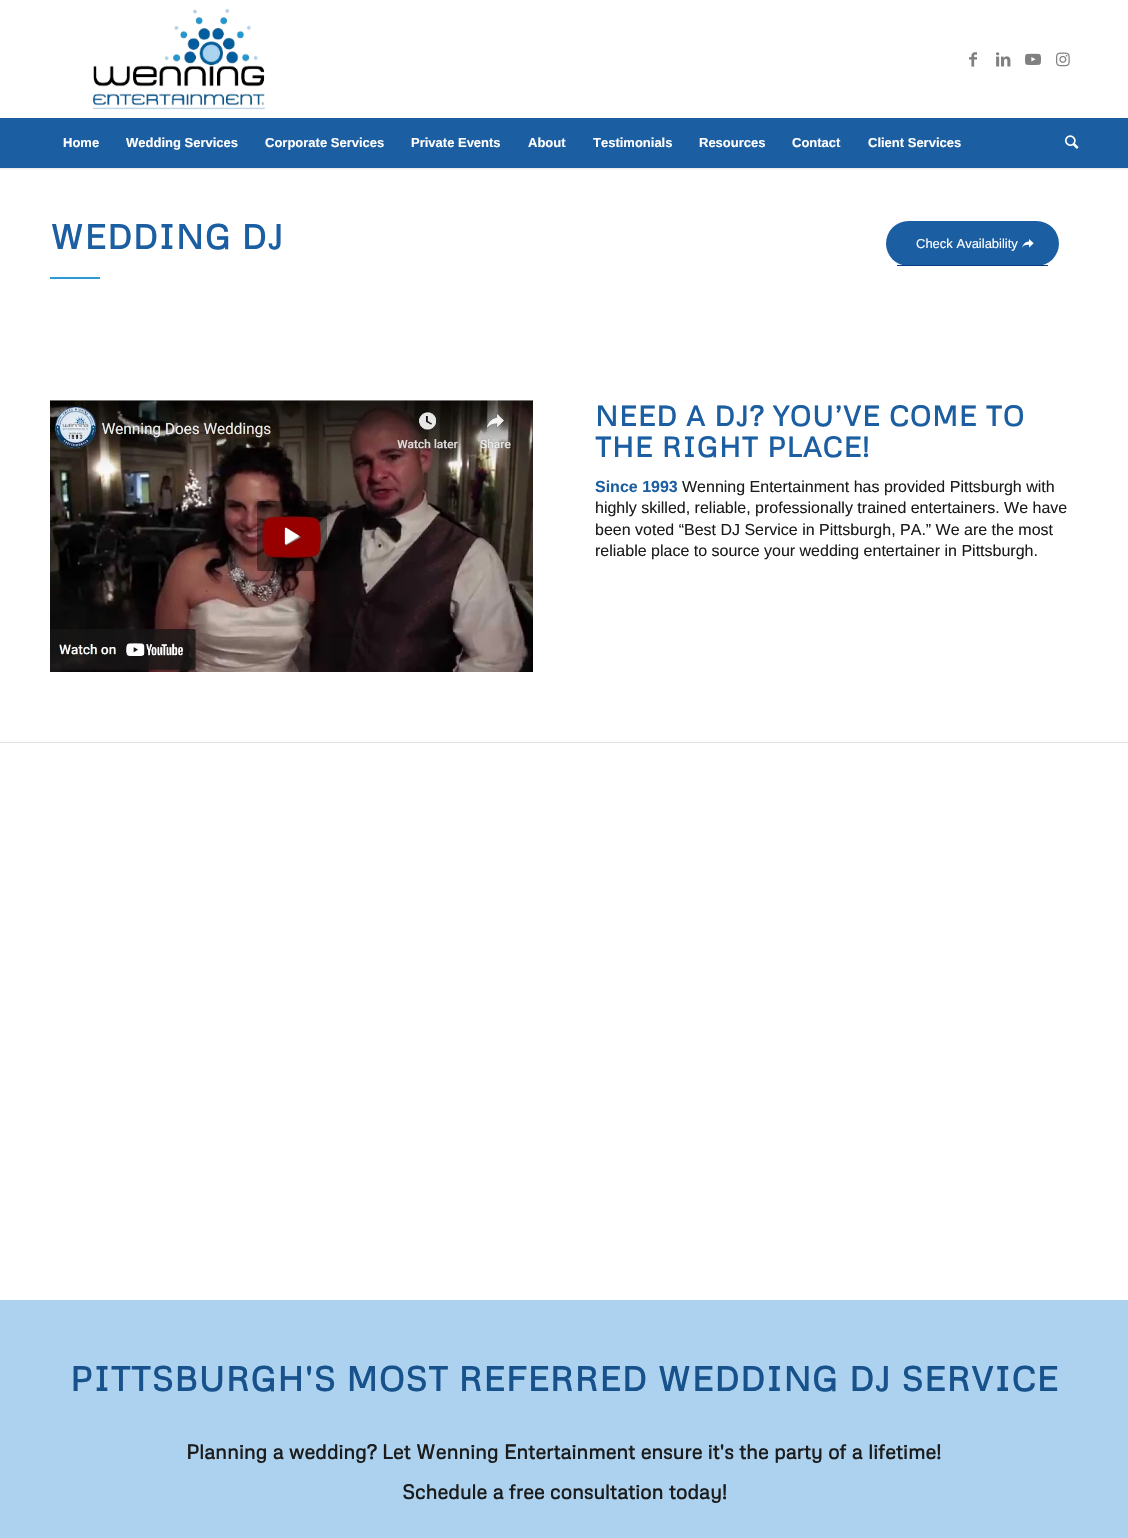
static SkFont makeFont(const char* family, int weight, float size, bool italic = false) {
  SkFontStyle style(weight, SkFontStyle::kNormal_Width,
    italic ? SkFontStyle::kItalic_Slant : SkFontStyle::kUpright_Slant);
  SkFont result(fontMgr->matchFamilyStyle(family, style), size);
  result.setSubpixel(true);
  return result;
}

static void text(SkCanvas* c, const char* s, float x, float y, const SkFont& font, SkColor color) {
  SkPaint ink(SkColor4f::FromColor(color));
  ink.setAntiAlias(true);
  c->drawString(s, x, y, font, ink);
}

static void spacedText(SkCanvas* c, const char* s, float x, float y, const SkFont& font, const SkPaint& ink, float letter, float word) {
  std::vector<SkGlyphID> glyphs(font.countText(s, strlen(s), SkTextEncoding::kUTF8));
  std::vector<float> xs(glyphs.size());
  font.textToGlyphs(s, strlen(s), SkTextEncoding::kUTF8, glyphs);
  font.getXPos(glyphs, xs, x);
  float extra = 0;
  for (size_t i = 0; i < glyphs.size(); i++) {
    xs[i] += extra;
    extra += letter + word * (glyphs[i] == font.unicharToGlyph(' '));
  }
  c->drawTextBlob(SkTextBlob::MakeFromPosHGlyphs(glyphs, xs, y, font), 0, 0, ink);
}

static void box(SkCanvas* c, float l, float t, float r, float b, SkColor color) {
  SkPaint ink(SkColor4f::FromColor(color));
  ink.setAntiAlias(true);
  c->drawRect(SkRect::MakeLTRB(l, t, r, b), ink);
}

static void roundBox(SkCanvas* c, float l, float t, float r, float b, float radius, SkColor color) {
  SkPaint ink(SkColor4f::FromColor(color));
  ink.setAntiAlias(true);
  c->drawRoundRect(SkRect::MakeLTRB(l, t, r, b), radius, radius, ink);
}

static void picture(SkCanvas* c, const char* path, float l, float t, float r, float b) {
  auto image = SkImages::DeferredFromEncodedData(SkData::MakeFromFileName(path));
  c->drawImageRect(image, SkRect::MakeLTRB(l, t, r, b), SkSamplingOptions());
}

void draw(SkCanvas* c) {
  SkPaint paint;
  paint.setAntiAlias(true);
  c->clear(0xffffffff);
  c->save();
  c->clipRect(SkRect::MakeLTRB(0, 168, 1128, 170));
  paint.setColor(0x1a000000);
  paint.setMaskFilter(SkMaskFilter::MakeBlur(kNormal_SkBlurStyle, 1));
  c->drawRect(SkRect::MakeLTRB(-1, -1, 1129, 169), paint);
  paint.setMaskFilter(nullptr);
  c->restore();
  picture(c, "img_01.png", 93, 9, 265, 110);
  picture(c, "img_02.png", 969, 52, 977, 67);
  picture(c, "img_03.png", 996, 52, 1011, 67);
  picture(c, "img_04.png", 1025, 53, 1041, 65);
  picture(c, "img_05.png", 1056, 52, 1070, 67);
  box(c, 0, 118, 1128, 168, 0xff1b5ea1);
  SkFont face1 = makeFont("Liberation Sans", 700, 13);
  text(c, "Home", 63, 147, face1, 0xffffffff);
  text(c, "Wedding Services", 126, 147, face1, 0xffffffff);
  text(c, "Corporate Services", 265, 147, face1, 0xffffffff);
  text(c, "Private Events", 411, 147, face1, 0xffffffff);
  text(c, "About", 528, 147, face1, 0xffffffff);
  text(c, "Testimonials", 593, 147, face1, 0xffffffff);
  text(c, "Resources", 699, 147, face1, 0xffffffff);
  text(c, "Contact", 792, 147, face1, 0xffffffff);
  text(c, "Client Services", 868, 147, face1, 0xffffffff);
  picture(c, "img_06.png", 1065, 135, 1079, 149);
  SkFont face2 = makeFont("Metrophobic", 700, 34);
  paint.setColor(0xff1b5ea1);
  spacedText(c, "WEDDING DJ", 50, 249, face2, paint, 1, 0);
  box(c, 50, 277, 100, 279, 0xff2d9ad6);
  roundBox(c, 886, 221, 1059, 266, 22.5f, 0xff1b5ea1);
  box(c, 897, 265, 1048, 266, 0xff093c80);
  SkFont face3 = makeFont("Liberation Sans", 400, 13);
  text(c, "Check Availability", 916, 248, face3, 0xffffffff);
  picture(c, "img_07.png", 1022, 239, 1034, 248);
  picture(c, "img_08.png", 50, 400, 533, 672);
  roundBox(c, 257, 501, 327, 571, 2, 0x66000000);
  picture(c, "img_09.png", 284, 527, 299, 545);
  SkFont face4 = makeFont("Metrophobic", 700, 28);
  spacedText(c, "NEED A DJ? YOU’VE COME TO", 595, 426, face4, paint, 1, 0);
  spacedText(c, "THE RIGHT PLACE!", 595, 457, face4, paint, 1, 0);
  SkFont face5 = makeFont("Liberation Sans", 700, 16);
  text(c, "Since 1993", 595, 492, face5, 0xff1b5ea1);
  SkFont face6 = makeFont("Liberation Sans", 400, 16);
  text(c, "Wenning Entertainment has provided Pittsburgh with", 682, 492, face6, 0xff1c1c1c);
  text(c, "highly skilled, reliable, professionally trained entertainers. We have", 595, 513, face6, 0xff1c1c1c);
  text(c, "been voted “Best DJ Service in Pittsburgh, PA.” We are the most", 595, 535, face6, 0xff1c1c1c);
  text(c, "reliable place to source your wedding entertainer in Pittsburgh.", 595, 556, face6, 0xff1c1c1c);
  box(c, 0, 742, 1128, 743, 0xffe1e1e1);
  box(c, 0, 1300, 1128, 1538, 0xffacd2ef);
  paint.setColor(0xff18528c);
  spacedText(c, "PITTSBURGH'S MOST REFERRED WEDDING DJ SERVICE", 70, 1391, face2, paint, 1, 0);
  SkFont face7 = makeFont("Metrophobic", 700, 20);
  text(c, "Planning a wedding? Let Wenning Entertainment ensure it's the party of a lifetime!", 186, 1459, face7, 0xff1c1c1c);
  text(c, "Schedule a free consultation today!", 402, 1499, face7, 0xff1c1c1c);
}
